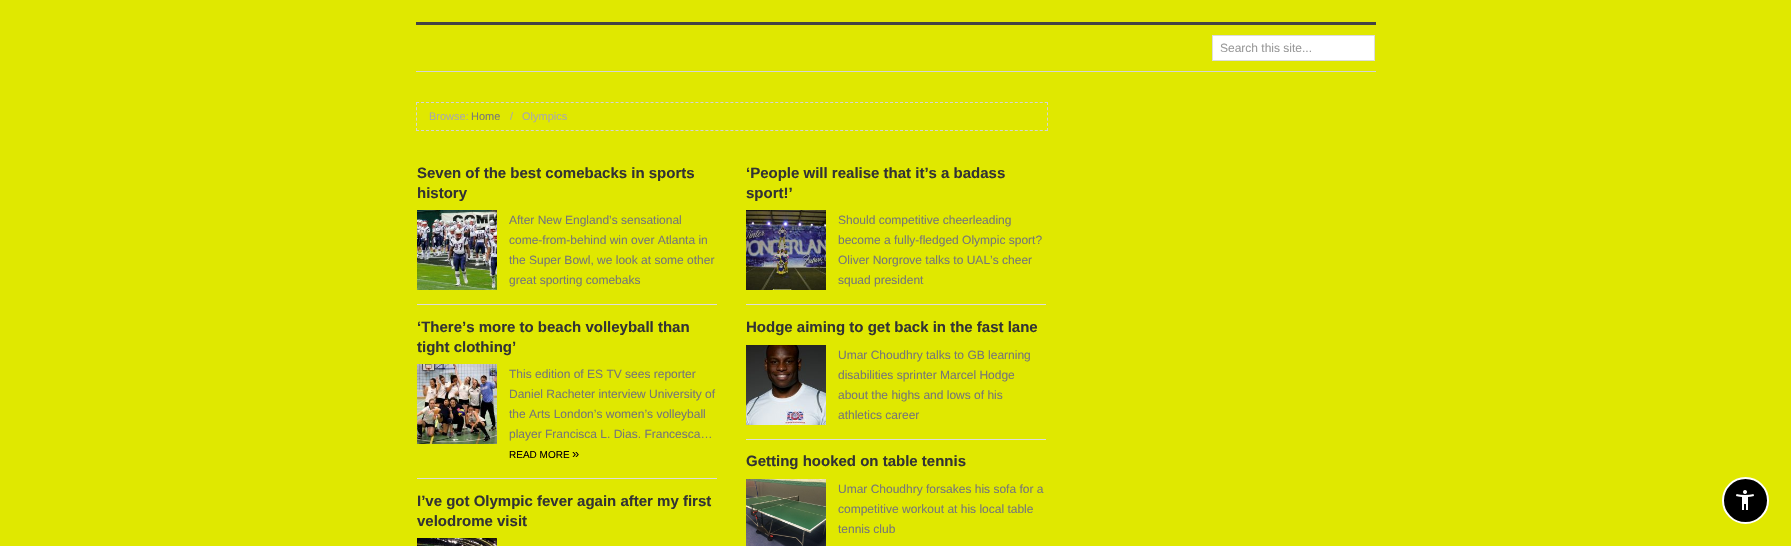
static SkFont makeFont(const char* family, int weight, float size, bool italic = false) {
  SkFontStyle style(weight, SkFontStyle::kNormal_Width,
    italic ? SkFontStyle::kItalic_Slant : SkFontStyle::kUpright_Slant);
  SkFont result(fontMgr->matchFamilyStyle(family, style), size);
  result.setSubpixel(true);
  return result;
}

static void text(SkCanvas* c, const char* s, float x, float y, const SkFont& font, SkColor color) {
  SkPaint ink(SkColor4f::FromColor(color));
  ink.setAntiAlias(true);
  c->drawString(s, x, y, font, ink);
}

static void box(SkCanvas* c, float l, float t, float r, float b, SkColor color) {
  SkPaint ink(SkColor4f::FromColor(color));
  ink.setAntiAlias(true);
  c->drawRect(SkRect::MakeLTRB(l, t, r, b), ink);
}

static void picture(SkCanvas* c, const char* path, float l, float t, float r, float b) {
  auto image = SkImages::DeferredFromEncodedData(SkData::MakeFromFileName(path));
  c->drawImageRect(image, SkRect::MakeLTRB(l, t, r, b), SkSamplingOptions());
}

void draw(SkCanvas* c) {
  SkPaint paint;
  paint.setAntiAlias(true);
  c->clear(0xffe0e800);
  box(c, 416, 22, 1376, 25, 0xff444444);
  box(c, 416, 71, 1376, 72, 0xffd5d5d5);
  paint.setColor(0xffffffff);
  c->drawRect(SkRect::MakeLTRB(1212.5f, 35.5f, 1374.5f, 60.5f), paint);
  paint.setStyle(SkPaint::kStroke_Style);
  paint.setStrokeWidth(1);
  paint.setColor(0xffdddddd);
  c->drawRect(SkRect::MakeLTRB(1212.5f, 35.5f, 1374.5f, 60.5f), paint);
  SkFont face1 = makeFont("Liberation Sans", 400, 12);
  text(c, "Search this site...", 1220, 52, face1, 0xff999999);
  paint.setColor(0xffd5d5d5);
  paint.setPathEffect(SkDashPathEffect::Make({{3, 1.99f}}, 0));
  c->drawPath(SkPathBuilder().moveTo(416, 102.5f).lineTo(1048, 102.5f).detach(), paint);
  paint.setPathEffect(nullptr);
  paint.setPathEffect(SkDashPathEffect::Make({{3, 2.2f}}, 0));
  c->drawPath(SkPathBuilder().moveTo(1047.5f, 102).lineTo(1047.5f, 131).detach(), paint);
  paint.setPathEffect(nullptr);
  paint.setPathEffect(SkDashPathEffect::Make({{3, 1.99f}}, 0));
  c->drawPath(SkPathBuilder().moveTo(416, 130.5f).lineTo(1048, 130.5f).detach(), paint);
  paint.setPathEffect(nullptr);
  paint.setPathEffect(SkDashPathEffect::Make({{3, 2.2f}}, 0));
  c->drawPath(SkPathBuilder().moveTo(416.5f, 102).lineTo(416.5f, 131).detach(), paint);
  paint.setPathEffect(nullptr);
  SkFont face2 = makeFont("Liberation Sans", 400, 11);
  text(c, "Browse:", 429, 120, face2, 0xffaaaaaa);
  text(c, "Home", 471, 120, face2, 0xff777777);
  text(c, "/", 510, 120, face2, 0xffaaaaaa);
  text(c, "Olympics", 522, 120, face2, 0xffaaaaaa);
  box(c, 417, 304, 717, 305, 0xffdddddd);
  SkFont face3 = makeFont("Liberation Sans", 700, 15);
  text(c, "Seven of the best comebacks in sports", 417, 178, face3, 0xff333333);
  text(c, "history", 417, 198, face3, 0xff333333);
  picture(c, "img_01.png", 417, 210, 497, 290);
  text(c, "After New England’s sensational", 509, 224, face1, 0xff777777);
  text(c, "come-from-behind win over Atlanta in", 509, 244, face1, 0xff777777);
  text(c, "the Super Bowl, we look at some other", 509, 264, face1, 0xff777777);
  text(c, "great sporting comebaks", 509, 284, face1, 0xff777777);
  box(c, 746, 304, 1046, 305, 0xffdddddd);
  text(c, "‘People will realise that it’s a badass", 746, 178, face3, 0xff333333);
  text(c, "sport!’", 746, 198, face3, 0xff333333);
  picture(c, "img_02.png", 746, 210, 826, 290);
  text(c, "Should competitive cheerleading", 838, 224, face1, 0xff777777);
  text(c, "become a fully-fledged Olympic sport?", 838, 244, face1, 0xff777777);
  text(c, "Oliver Norgrove talks to UAL’s cheer", 838, 264, face1, 0xff777777);
  text(c, "squad president", 838, 284, face1, 0xff777777);
  box(c, 417, 478, 717, 479, 0xffdddddd);
  text(c, "‘There’s more to beach volleyball than", 417, 332, face3, 0xff333333);
  text(c, "tight clothing’", 417, 352, face3, 0xff333333);
  picture(c, "img_03.png", 417, 364, 497, 444);
  text(c, "This edition of ES TV sees reporter", 509, 378, face1, 0xff777777);
  text(c, "Daniel Racheter interview University of", 509, 398, face1, 0xff777777);
  text(c, "the Arts London’s women’s volleyball", 509, 418, face1, 0xff777777);
  text(c, "player Francisca L. Dias. Francesca…", 509, 438, face1, 0xff777777);
  SkFont face4 = makeFont("Liberation Sans", 400, 10);
  text(c, "READ MORE", 509, 458, face4, 0xff0a0004);
  SkFont face5 = makeFont("Liberation Sans", 400, 13);
  text(c, "»", 572, 458, face5, 0xff0a0004);
  box(c, 746, 439, 1046, 440, 0xffdddddd);
  text(c, "Hodge aiming to get back in the fast lane", 746, 332, face3, 0xff333333);
  picture(c, "img_04.png", 746, 345, 826, 425);
  text(c, "Umar Choudhry talks to GB learning", 838, 359, face1, 0xff777777);
  text(c, "disabilities sprinter Marcel Hodge", 838, 379, face1, 0xff777777);
  text(c, "about the highs and lows of his", 838, 399, face1, 0xff777777);
  text(c, "athletics career", 838, 419, face1, 0xff777777);
  text(c, "I’ve got Olympic fever again after my first", 417, 506, face3, 0xff333333);
  text(c, "velodrome visit", 417, 526, face3, 0xff333333);
  picture(c, "img_05.png", 417, 538, 497, 546);
  text(c, "Getting hooked on table tennis", 746, 466, face3, 0xff333333);
  picture(c, "img_06.png", 746, 479, 826, 546);
  text(c, "Umar Choudhry forsakes his sofa for a", 838, 493, face1, 0xff777777);
  text(c, "competitive workout at his local table", 838, 513, face1, 0xff777777);
  text(c, "tennis club", 838, 533, face1, 0xff777777);
  paint.setStyle(SkPaint::kFill_Style);
  paint.setColor(0xff000000);
  c->drawCircle(1745.5f, 500.5f, 22.5f, paint);
  paint.setStyle(SkPaint::kStroke_Style);
  paint.setStrokeWidth(2);
  paint.setColor(0xffffffff);
  c->drawCircle(1745.5f, 500.5f, 22.5f, paint);
  picture(c, "img_07.png", 1736, 490, 1754, 510);
}
